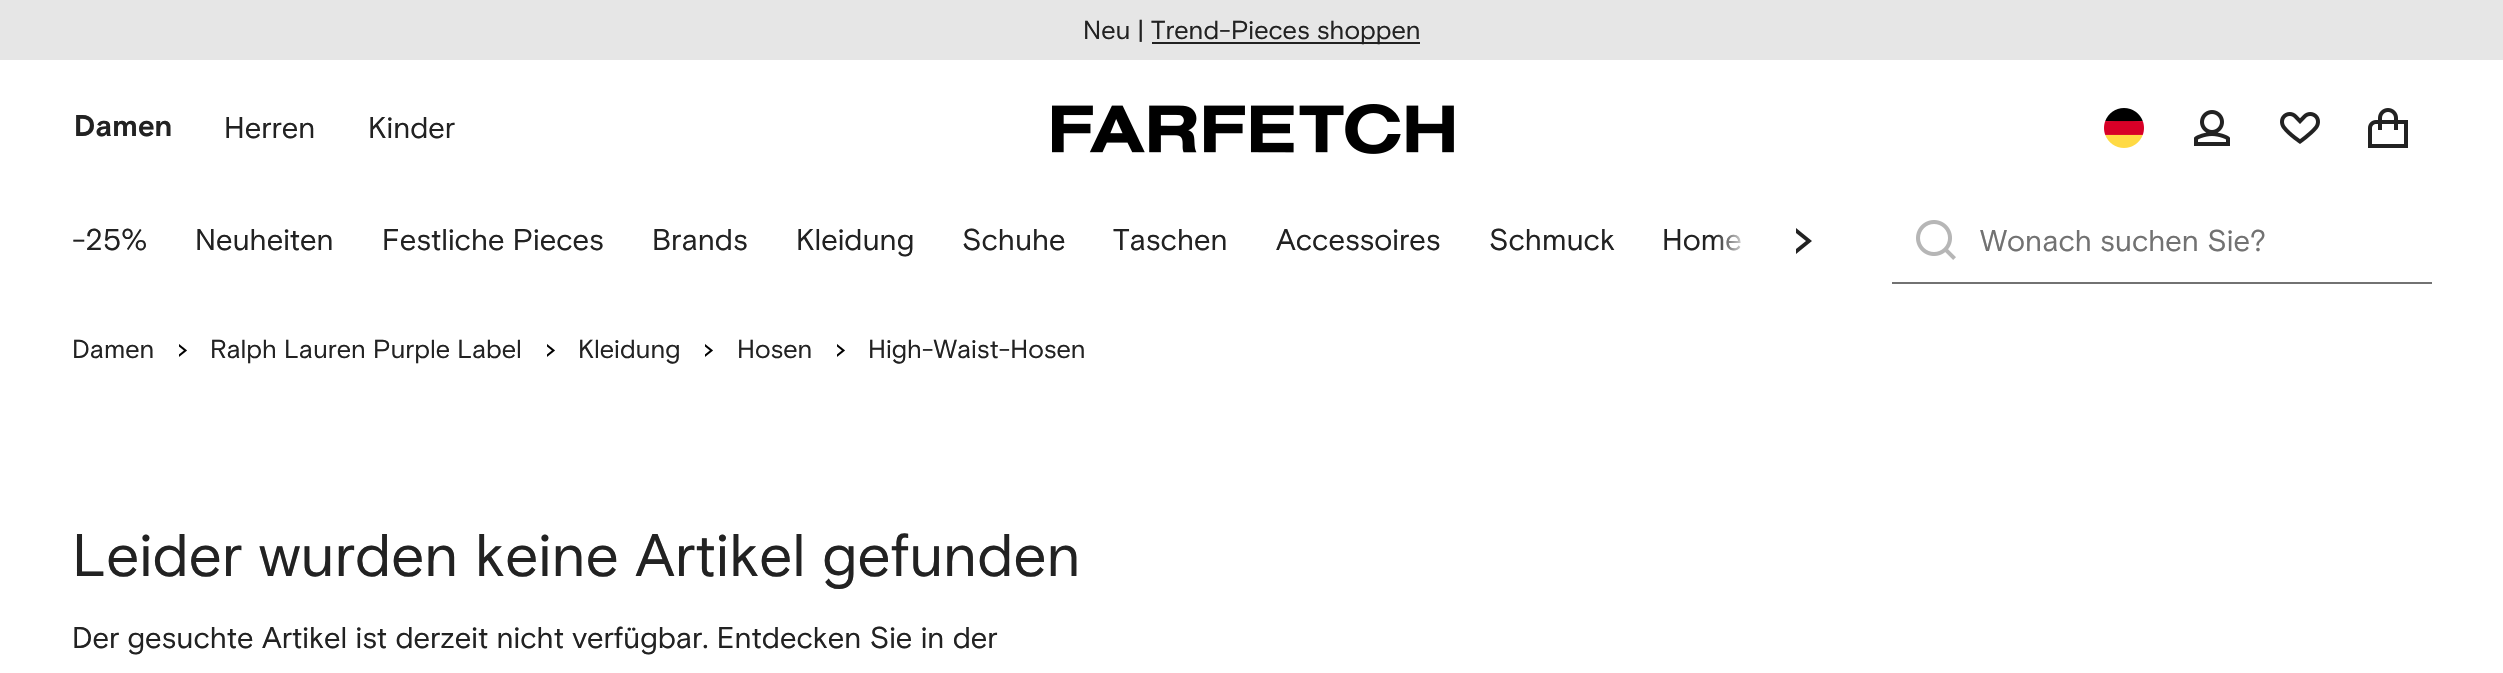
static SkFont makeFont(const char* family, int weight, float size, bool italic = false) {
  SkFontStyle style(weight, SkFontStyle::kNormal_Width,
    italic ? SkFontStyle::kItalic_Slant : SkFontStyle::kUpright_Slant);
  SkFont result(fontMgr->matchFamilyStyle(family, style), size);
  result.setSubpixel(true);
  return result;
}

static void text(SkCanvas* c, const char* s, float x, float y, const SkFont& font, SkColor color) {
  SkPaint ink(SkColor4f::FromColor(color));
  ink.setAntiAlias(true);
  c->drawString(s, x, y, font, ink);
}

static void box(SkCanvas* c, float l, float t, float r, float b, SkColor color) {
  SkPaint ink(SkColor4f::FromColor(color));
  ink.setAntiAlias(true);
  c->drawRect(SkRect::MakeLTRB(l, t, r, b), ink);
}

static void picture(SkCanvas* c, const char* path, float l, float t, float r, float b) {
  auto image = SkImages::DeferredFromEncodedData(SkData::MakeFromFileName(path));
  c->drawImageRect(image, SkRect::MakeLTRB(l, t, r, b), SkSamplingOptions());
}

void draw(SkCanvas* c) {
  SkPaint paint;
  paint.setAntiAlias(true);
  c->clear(0xffffffff);
  box(c, 0, 0, 2503, 60, 0xffe6e6e6);
  SkFont face1 = makeFont("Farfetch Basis", 400, 26);
  text(c, "Neu |", 1083, 39, face1, 0xff222222);
  box(c, 1152, 42, 1420, 44, 0xff222222);
  text(c, "Trend-Pieces shoppen", 1151, 39, face1, 0xff222222);
  SkFont face2 = makeFont("Farfetch Basis", 700, 30);
  text(c, "Damen", 74, 136, face2, 0xff222222);
  SkFont face3 = makeFont("Farfetch Basis", 400, 30);
  text(c, "Herren", 224, 138, face3, 0xff222222);
  text(c, "Kinder", 368, 138, face3, 0xff222222);
  picture(c, "img_01.png", 1052, 104, 1454, 154);
  picture(c, "img_02.png", 2104, 108, 2144, 148);
  picture(c, "img_03.png", 2194, 110, 2230, 146);
  picture(c, "img_04.png", 2280, 112, 2320, 144);
  picture(c, "img_05.png", 2368, 108, 2408, 148);
  text(c, "-25%", 72, 250, face3, 0xff222222);
  text(c, "Neuheiten", 195, 250, face3, 0xff222222);
  text(c, "Festliche Pieces", 382, 250, face3, 0xff222222);
  text(c, "Brands", 652, 250, face3, 0xff222222);
  text(c, "Kleidung", 796, 250, face3, 0xff222222);
  text(c, "Schuhe", 962, 250, face3, 0xff222222);
  text(c, "Taschen", 1113, 250, face3, 0xff222222);
  text(c, "Accessoires", 1276, 250, face3, 0xff222222);
  text(c, "Schmuck", 1489, 250, face3, 0xff222222);
  text(c, "Home", 1662, 250, face3, 0xff222222);
  paint.setColor(0xff222222);
  c->drawPath(SkPathBuilder(SkPathFillType::kEvenOdd).moveTo(1796, 254).lineTo(1812, 241).lineTo(1796, 228).lineTo(1796, 233).lineTo(1806, 241).lineTo(1796, 249).close().detach(), paint);
  {
    const SkColor colors[] = {0x00ffffff, 0xffffffff};
    const float stops[] = {0, 0.8f};
    const SkPoint ends[] = {{1714, 240}, {1758, 240}};
    paint.setShader(SkGradientShader::MakeLinear(ends, colors, stops, 2, SkTileMode::kClamp));
    paint.setAlpha(255);
  }
  c->drawRect(SkRect::MakeLTRB(1715, 234, 1741, 251), paint);
  box(c, 1892, 282, 2432, 284, 0xff727272);
  picture(c, "img_06.png", 1916, 220, 1956, 260);
  text(c, "Wonach suchen Sie?", 1980, 251, face3, 0xff727272);
  text(c, "Damen", 72, 358, face1, 0xff222222);
  picture(c, "img_07.png", 179, 344, 187, 357);
  text(c, "Ralph Lauren Purple Label", 210, 358, face1, 0xff222222);
  picture(c, "img_07.png", 547, 344, 555, 357);
  text(c, "Kleidung", 578, 358, face1, 0xff222222);
  picture(c, "img_07.png", 705, 344, 713, 357);
  text(c, "Hosen", 737, 358, face1, 0xff222222);
  picture(c, "img_07.png", 837, 344, 845, 357);
  text(c, "High-Waist-Hosen", 868, 358, face1, 0xff222222);
  SkFont face4 = makeFont("Farfetch Basis", 400, 60);
  text(c, "Leider wurden keine Artikel gefunden", 72, 576, face4, 0xff222222);
  text(c, "Der gesuchte Artikel ist derzeit nicht verfügbar. Entdecken Sie in der", 72, 648, face3, 0xff222222);
}
